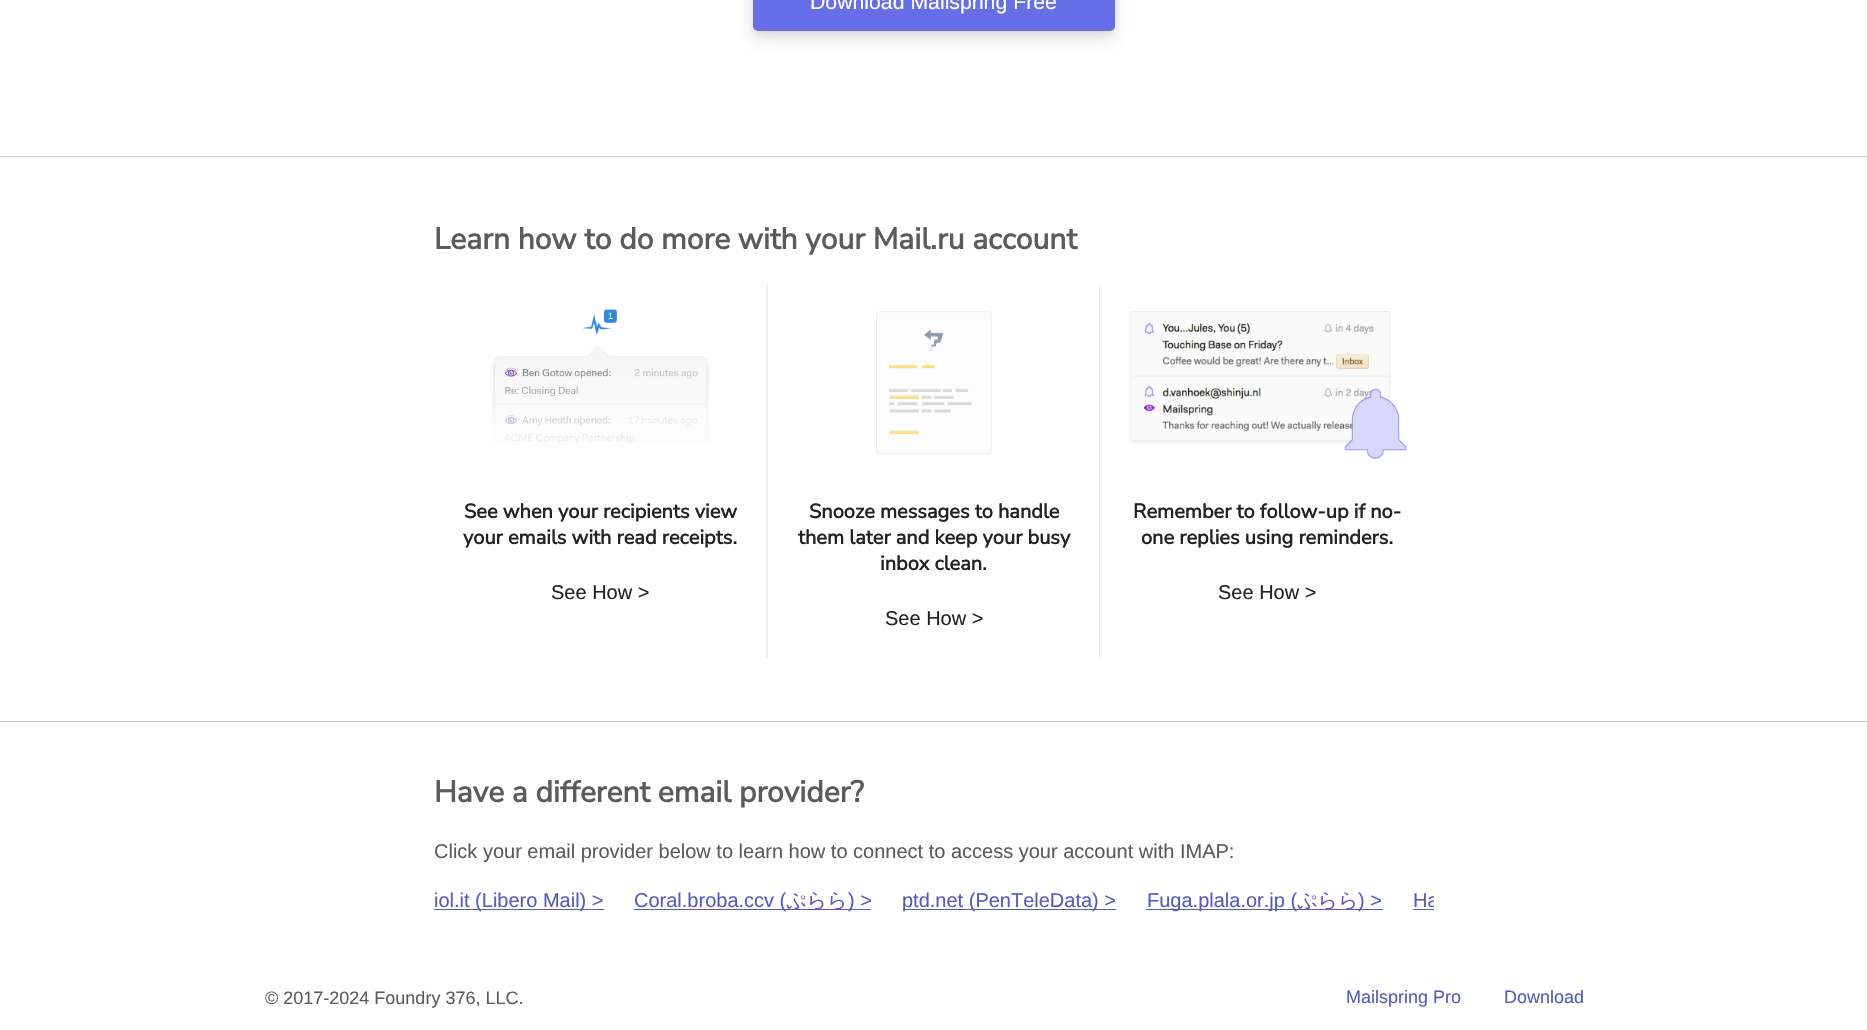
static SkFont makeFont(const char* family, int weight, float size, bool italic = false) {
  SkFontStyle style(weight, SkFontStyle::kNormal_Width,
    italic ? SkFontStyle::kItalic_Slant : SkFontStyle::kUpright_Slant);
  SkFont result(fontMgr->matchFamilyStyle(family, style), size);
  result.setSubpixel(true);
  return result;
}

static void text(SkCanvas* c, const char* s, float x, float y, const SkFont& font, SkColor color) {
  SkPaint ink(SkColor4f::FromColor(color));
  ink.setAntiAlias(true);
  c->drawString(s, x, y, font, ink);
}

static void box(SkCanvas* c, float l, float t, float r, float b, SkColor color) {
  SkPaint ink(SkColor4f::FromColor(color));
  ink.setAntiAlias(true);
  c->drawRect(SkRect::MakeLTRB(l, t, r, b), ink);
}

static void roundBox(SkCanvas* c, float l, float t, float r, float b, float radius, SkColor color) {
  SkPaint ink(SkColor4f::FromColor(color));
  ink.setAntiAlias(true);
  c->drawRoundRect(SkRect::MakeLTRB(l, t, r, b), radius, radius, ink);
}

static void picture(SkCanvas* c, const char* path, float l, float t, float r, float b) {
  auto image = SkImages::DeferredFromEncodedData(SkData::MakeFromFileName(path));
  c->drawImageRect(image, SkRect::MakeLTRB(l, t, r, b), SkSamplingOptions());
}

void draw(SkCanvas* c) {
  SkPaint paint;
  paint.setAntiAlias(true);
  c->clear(0xffffffff);
  paint.setColor(0x14000000);
  paint.setMaskFilter(SkMaskFilter::MakeBlur(kNormal_SkBlurStyle, 4));
  c->drawRoundRect(SkRect::MakeLTRB(753, -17, 1115, 35), 5, 5, paint);
  paint.setMaskFilter(nullptr);
  paint.setColor(0x1a31315d);
  paint.setMaskFilter(SkMaskFilter::MakeBlur(kNormal_SkBlurStyle, 9));
  c->drawRoundRect(SkRect::MakeLTRB(753, -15, 1115, 40), 5, 5, paint);
  paint.setMaskFilter(nullptr);
  roundBox(c, 753, -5, 1115, 31, 5, 0xff666ee8);
  SkFont face1 = makeFont("Liberation Sans", 400, 21.25f);
  text(c, "Download Mailspring Free", 810, 9, face1, 0xffffffff);
  box(c, 0, 156, 1867, 157, 0xffcccccc);
  box(c, 0, 721, 1867, 722, 0xffcccccc);
  SkFont face2 = makeFont("Nunito Sans", 700, 30);
  text(c, "Learn how to do more with your Mail.ru account", 434, 249, face2, 0xff5b5b5b);
  paint.setColor(0xffeeeeee);
  c->drawPath(SkPathBuilder().moveTo(768, 284).lineTo(768, 659).lineTo(766, 658).lineTo(766, 285).close().detach(), paint);
  picture(c, "img_01.png", 491, 309, 710, 444);
  SkFont face3 = makeFont("Nunito Sans", 700, 20);
  text(c, "See when your recipients view", 464, 518, face3, 0xff222222);
  text(c, "your emails with read receipts.", 463, 544, face3, 0xff222222);
  SkFont face4 = makeFont("Liberation Sans", 400, 20);
  text(c, "See How >", 551, 599, face4, 0xff222222);
  c->drawPath(SkPathBuilder().moveTo(1100, 284).lineTo(1100, 659).lineTo(1099, 658).lineTo(1099, 285).close().detach(), paint);
  picture(c, "img_02.png", 876, 311, 992, 455);
  text(c, "Snooze messages to handle", 809, 518, face3, 0xff222222);
  text(c, "them later and keep your busy", 798, 544, face3, 0xff222222);
  text(c, "inbox clean.", 880, 570, face3, 0xff222222);
  text(c, "See How >", 885, 625, face4, 0xff222222);
  picture(c, "img_03.png", 1130, 311, 1407, 460);
  text(c, "Remember to follow-up if no-", 1133, 518, face3, 0xff222222);
  text(c, "one replies using reminders.", 1141, 544, face3, 0xff222222);
  text(c, "See How >", 1218, 599, face4, 0xff222222);
  text(c, "Have a different email provider?", 434, 802, face2, 0xff5b5b5b);
  text(c, "Click your email provider below to learn how to connect to access your account with IMAP:", 434, 858, face4, 0xff5b5b5b);
  box(c, 434, 909, 604, 910, 0xff555abf);
  text(c, "iol.it (Libero Mail) >", 434, 907, face4, 0xff555abf);
  box(c, 634, 909, 871, 910, 0xff555abf);
  text(c, "Coral.broba.ccv (", 634, 907, face4, 0xff555abf);
  SkFont face5 = makeFont("WenQuanYi Zen Hei", 500, 20);
  text(c, "ぷらら", 786, 907, face5, 0xff555abf);
  text(c, ") >", 848, 907, face4, 0xff555abf);
  box(c, 903, 909, 1116, 910, 0xff555abf);
  text(c, "ptd.net (PenTeleData) >", 902, 907, face4, 0xff555abf);
  box(c, 1146, 909, 1383, 910, 0xff555abf);
  text(c, "Fuga.plala.or.jp (", 1147, 907, face4, 0xff555abf);
  text(c, "ぷらら", 1297, 907, face5, 0xff555abf);
  text(c, ") >", 1358, 907, face4, 0xff555abf);
  c->save();
  c->clipRect(SkRect::MakeLTRB(434, 886, 1434, 915));
  text(c, "Ha", 1413, 907, face4, 0xff555abf);
  c->restore();
  box(c, 1413, 909, 1434, 910, 0xff555abf);
  SkFont face6 = makeFont("Liberation Sans", 400, 18);
  text(c, "© 2017-2024 Foundry 376, LLC.", 265, 1004, face6, 0xff5b5b5b);
  text(c, "Mailspring Pro", 1346, 1003, face6, 0xff555abf);
  text(c, "Download", 1504, 1003, face6, 0xff555abf);
}
